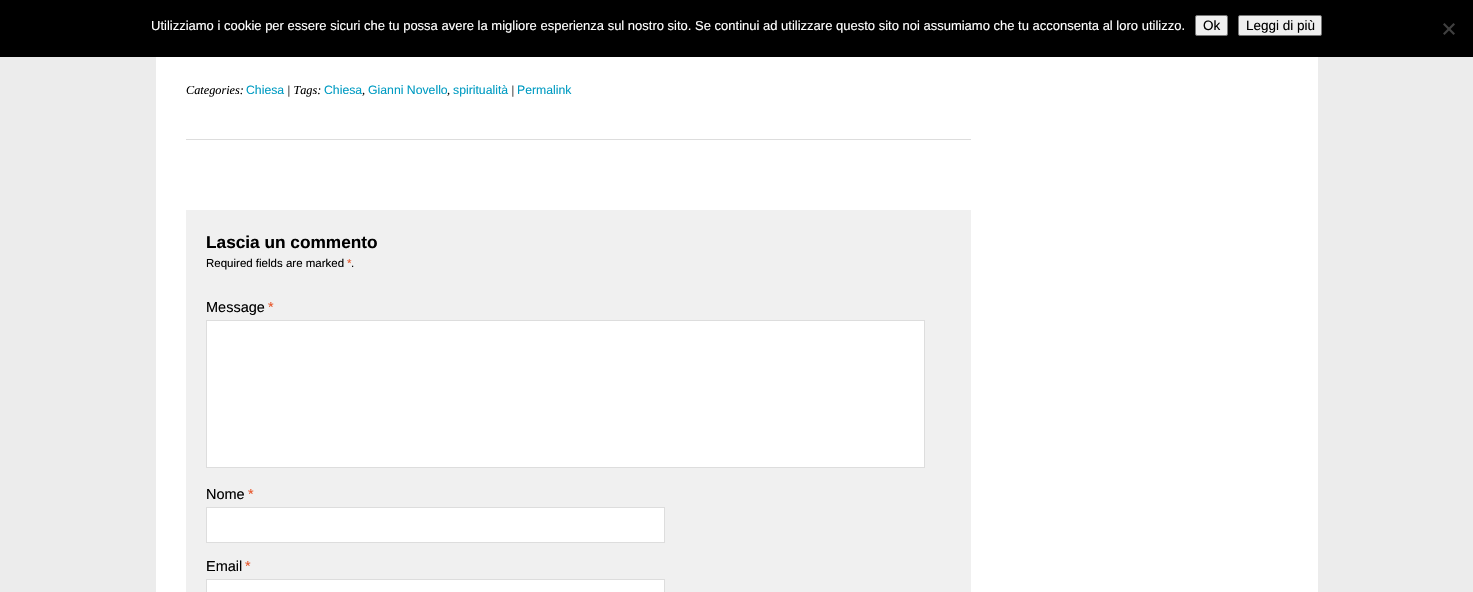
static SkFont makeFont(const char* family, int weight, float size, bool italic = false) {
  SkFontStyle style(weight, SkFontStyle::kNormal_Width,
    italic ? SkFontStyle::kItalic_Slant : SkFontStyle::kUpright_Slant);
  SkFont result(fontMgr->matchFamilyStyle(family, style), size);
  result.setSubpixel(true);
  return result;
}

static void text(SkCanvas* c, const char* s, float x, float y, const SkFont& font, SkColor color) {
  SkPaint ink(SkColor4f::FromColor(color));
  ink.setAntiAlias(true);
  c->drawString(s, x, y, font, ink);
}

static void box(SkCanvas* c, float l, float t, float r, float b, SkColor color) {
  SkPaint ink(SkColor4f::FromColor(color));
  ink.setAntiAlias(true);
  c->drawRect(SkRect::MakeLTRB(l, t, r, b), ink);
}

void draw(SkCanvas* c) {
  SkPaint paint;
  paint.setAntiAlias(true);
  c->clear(0xffececec);
  box(c, 0, 0, 1473, 57, 0xff000000);
  SkFont face1 = makeFont("Liberation Sans", 400, 13);
  text(c, "Utilizziamo i cookie per essere sicuri che tu possa avere la migliore esperienza sul nostro sito. Se continui ad utilizzare questo sito noi assumiamo che tu acconsenta al loro utilizzo.", 151, 30, face1, 0xffffffff);
  paint.setColor(0xffefefef);
  c->drawRoundRect(SkRect::MakeLTRB(1195.5f, 15.5f, 1227.5f, 35.5f), 1.5f, 1.5f, paint);
  paint.setStyle(SkPaint::kStroke_Style);
  paint.setStrokeWidth(1);
  paint.setColor(0xff767676);
  c->drawRoundRect(SkRect::MakeLTRB(1195.5f, 15.5f, 1227.5f, 35.5f), 1.5f, 1.5f, paint);
  SkFont face2 = makeFont("Liberation Sans", 400, 13.5f);
  text(c, "Ok", 1203, 30, face2, 0xff000000);
  paint.setStyle(SkPaint::kFill_Style);
  paint.setColor(0xffefefef);
  c->drawRoundRect(SkRect::MakeLTRB(1238.5f, 15.5f, 1321.5f, 35.5f), 1.5f, 1.5f, paint);
  paint.setStyle(SkPaint::kStroke_Style);
  paint.setColor(0xff767676);
  c->drawRoundRect(SkRect::MakeLTRB(1238.5f, 15.5f, 1321.5f, 35.5f), 1.5f, 1.5f, paint);
  text(c, "Leggi di più", 1246, 30, face2, 0xff000000);
  paint.setStyle(SkPaint::kFill_Style);
  paint.setColor(0xff404040);
  c->drawPath(SkPathBuilder().moveTo(1453.5f, 23).lineTo(1455, 24.5f).lineTo(1444.5f, 35).lineTo(1443, 33.5f).close().detach(), paint);
  c->drawPath(SkPathBuilder().moveTo(1443, 24.5f).lineTo(1444.5f, 23).lineTo(1455, 33.5f).lineTo(1453.5f, 35).close().detach(), paint);
  box(c, 156, 57, 1318, 592, 0xffffffff);
  box(c, 186, 139, 971, 140, 0xffdddddd);
  SkFont face3 = makeFont("Liberation Serif", 400, 12.25f, true);
  text(c, "Categories:", 186, 94, face3, 0xff000000);
  SkFont face4 = makeFont("Liberation Sans", 400, 12.25f);
  text(c, "Chiesa", 246, 94, face4, 0xff009bc2);
  text(c, "| Tags:", 287, 94, face3, 0xff000000);
  text(c, "Chiesa", 324, 94, face4, 0xff009bc2);
  text(c, ",", 362, 94, face3, 0xff000000);
  text(c, "Gianni Novello", 368, 94, face4, 0xff009bc2);
  text(c, ",", 447, 94, face3, 0xff000000);
  text(c, "spiritualità", 453, 94, face4, 0xff009bc2);
  text(c, "|", 511, 94, face3, 0xff000000);
  text(c, "Permalink", 517, 94, face4, 0xff009bc2);
  box(c, 186, 210, 971, 592, 0xfff0f0f0);
  SkFont face5 = makeFont("Liberation Sans", 700, 17.25f);
  text(c, "Lascia un commento", 206, 248, face5, 0xff000000);
  SkFont face6 = makeFont("Liberation Sans", 400, 11.5f);
  text(c, "Required fields are marked", 206, 267, face6, 0xff000000);
  text(c, "*", 347, 267, face6, 0xffe75428);
  text(c, ".", 351, 267, face6, 0xff000000);
  SkFont face7 = makeFont("Liberation Sans", 400, 14.5f);
  text(c, "Message", 206, 312, face7, 0xff000000);
  text(c, "*", 268, 312, face7, 0xffe75428);
  paint.setColor(0xffffffff);
  c->drawRect(SkRect::MakeLTRB(206.5f, 320.5f, 924.5f, 467.5f), paint);
  paint.setStyle(SkPaint::kStroke_Style);
  paint.setColor(0xffdddddd);
  c->drawRect(SkRect::MakeLTRB(206.5f, 320.5f, 924.5f, 467.5f), paint);
  text(c, "Nome", 206, 499, face7, 0xff000000);
  text(c, "*", 248, 499, face7, 0xffe75428);
  paint.setStyle(SkPaint::kFill_Style);
  paint.setColor(0xffffffff);
  c->drawRect(SkRect::MakeLTRB(206.5f, 507.5f, 664.5f, 542.5f), paint);
  paint.setStyle(SkPaint::kStroke_Style);
  paint.setColor(0xffdddddd);
  c->drawRect(SkRect::MakeLTRB(206.5f, 507.5f, 664.5f, 542.5f), paint);
  text(c, "Email", 206, 571, face7, 0xff000000);
  text(c, "*", 245, 571, face7, 0xffe75428);
  paint.setStyle(SkPaint::kFill_Style);
  paint.setColor(0xffffffff);
  c->drawRect(SkRect::MakeLTRB(206.5f, 579.5f, 664.5f, 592.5f), paint);
  paint.setStyle(SkPaint::kStroke_Style);
  paint.setColor(0xffdddddd);
  c->drawRect(SkRect::MakeLTRB(206.5f, 579.5f, 664.5f, 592.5f), paint);
}
